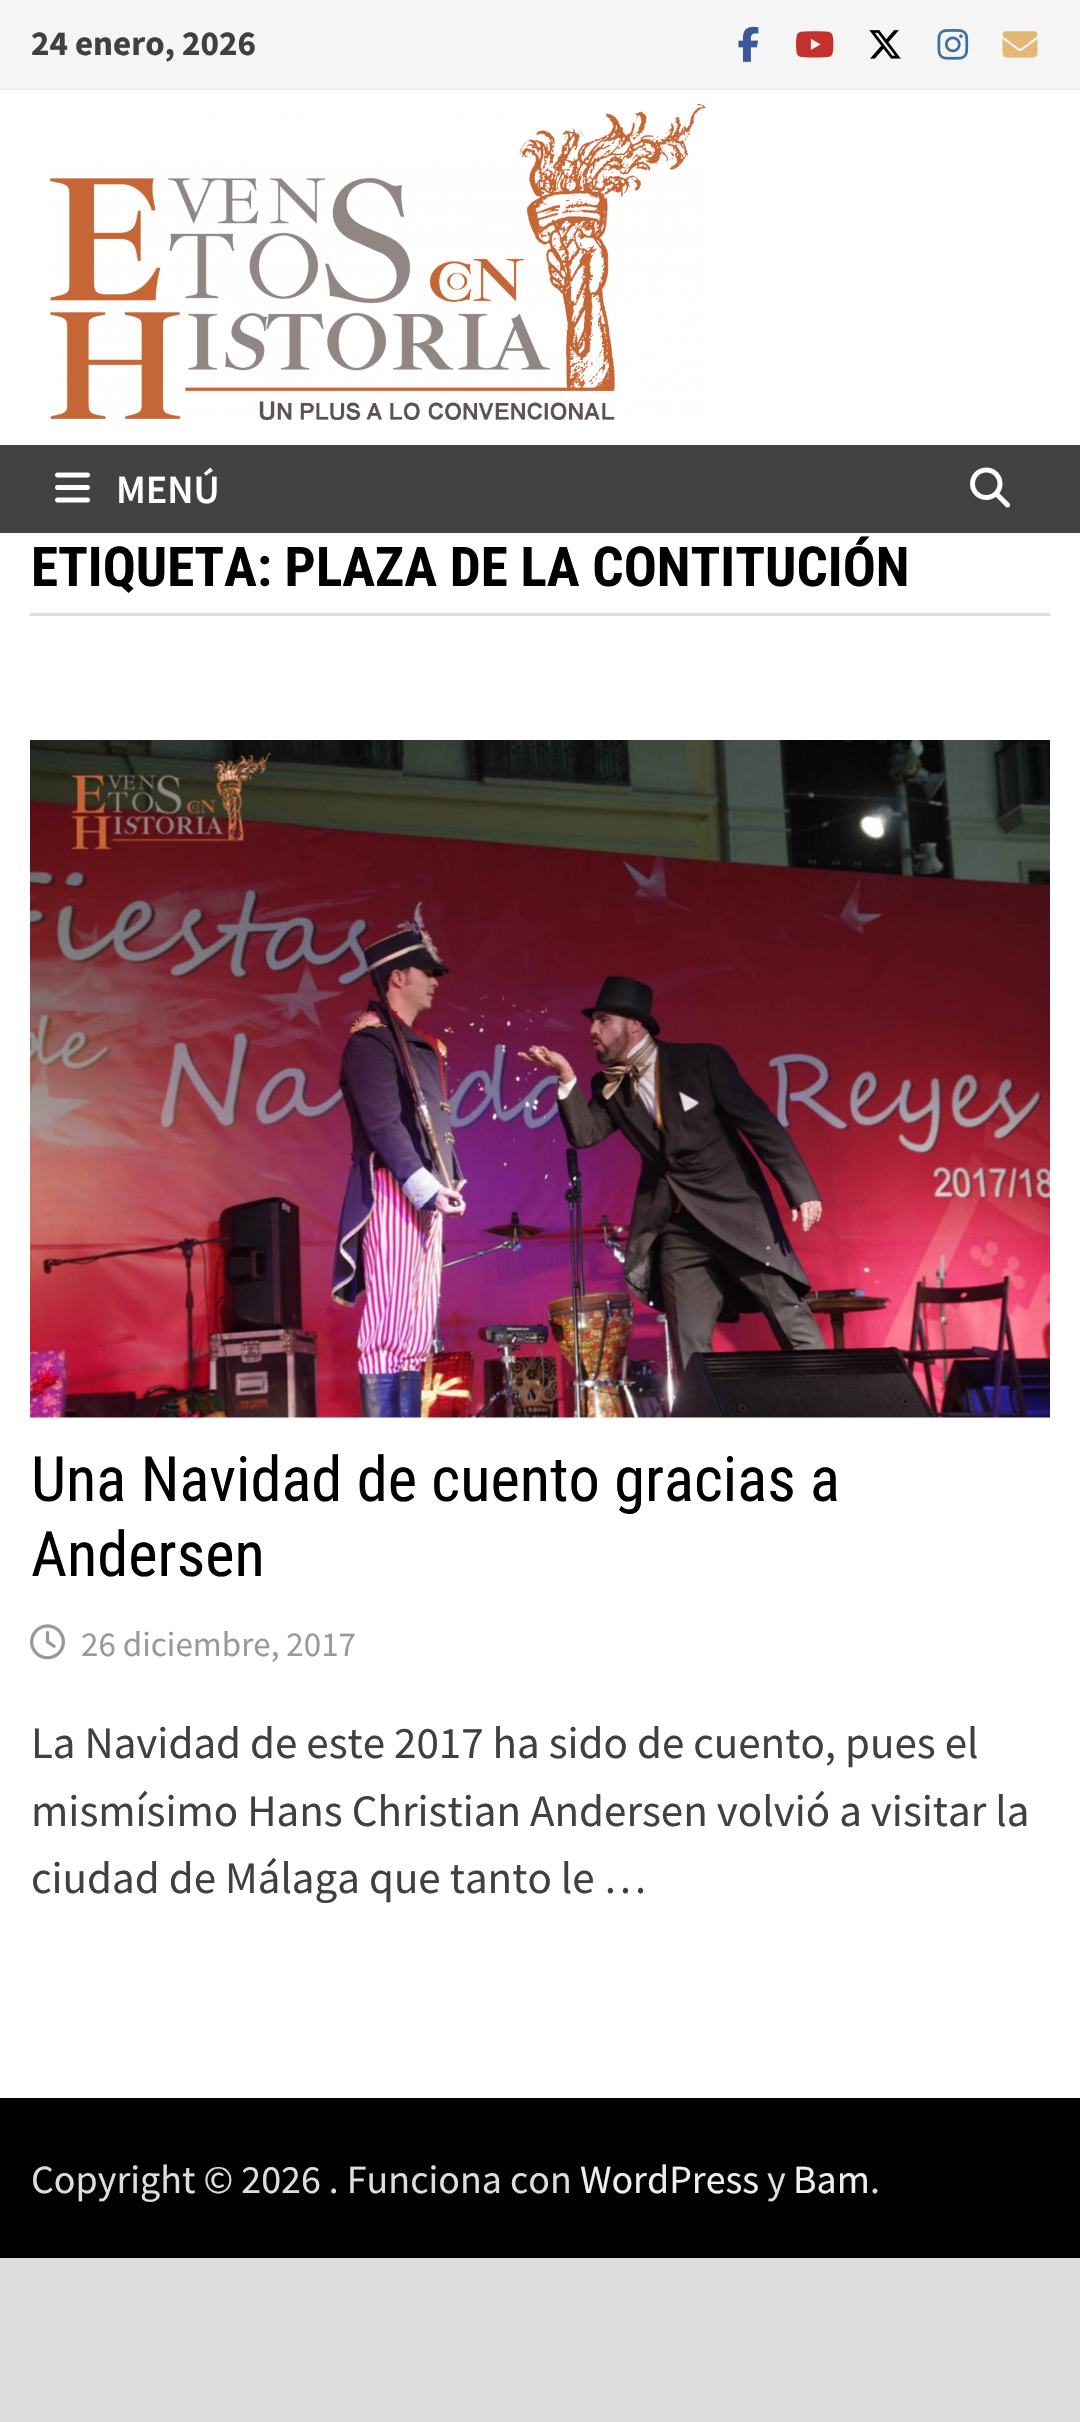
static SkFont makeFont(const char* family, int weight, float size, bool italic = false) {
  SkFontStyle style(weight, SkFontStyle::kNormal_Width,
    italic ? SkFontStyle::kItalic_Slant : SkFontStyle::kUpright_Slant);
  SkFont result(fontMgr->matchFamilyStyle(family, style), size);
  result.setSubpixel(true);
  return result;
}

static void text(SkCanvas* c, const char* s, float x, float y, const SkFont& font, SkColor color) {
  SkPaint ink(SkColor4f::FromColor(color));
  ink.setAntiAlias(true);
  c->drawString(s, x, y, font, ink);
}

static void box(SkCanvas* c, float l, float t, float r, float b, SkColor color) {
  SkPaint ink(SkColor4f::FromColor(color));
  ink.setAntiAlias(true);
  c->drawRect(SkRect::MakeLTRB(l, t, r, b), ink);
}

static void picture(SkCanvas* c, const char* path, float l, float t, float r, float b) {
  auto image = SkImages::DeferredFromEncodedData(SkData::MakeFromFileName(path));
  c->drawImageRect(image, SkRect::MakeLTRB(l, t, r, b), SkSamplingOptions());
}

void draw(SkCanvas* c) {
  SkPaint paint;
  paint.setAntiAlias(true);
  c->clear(0xffdddddd);
  box(c, 0, 533, 1080, 2098, 0xffffffff);
  box(c, 0, 0, 1080, 88, 0xfff5f5f5);
  box(c, 0, 88, 1080, 90, 0xffeeeeee);
  SkFont face1 = makeFont("Source Sans Pro", 700, 35);
  text(c, "24 enero, 2026", 31, 55, face1, 0xff404040);
  picture(c, "img_01.png", 738, 26, 759, 62);
  picture(c, "img_02.png", 796, 31, 834, 58);
  picture(c, "img_03.png", 869, 30, 901, 59);
  picture(c, "img_04.png", 937, 29, 969, 60);
  picture(c, "img_05.png", 1002, 31, 1038, 58);
  box(c, 0, 90, 1080, 445, 0xffffffff);
  picture(c, "img_06.png", 50, 103, 706, 420);
  box(c, 0, 445, 1080, 533, 0xff424242);
  picture(c, "img_07.png", 55, 472, 90, 503);
  SkFont face2 = makeFont("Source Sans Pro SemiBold", 600, 40);
  text(c, "MENÚ", 116, 503, face2, 0xffffffff);
  picture(c, "img_08.png", 970, 467, 1010, 508);
  box(c, 30, 613, 1050, 616, 0xffdddddd);
  SkFont face3 = makeFont("Roboto Condensed", 700, 55);
  text(c, "ETIQUETA: PLAZA DE LA CONTITUCIÓN", 31, 586, face3, 0xff000000);
  picture(c, "img_09.png", 30, 740, 1050, 1418);
  SkFont face4 = makeFont("Roboto Condensed", 400, 62.5f);
  text(c, "Una Navidad de cuento gracias a", 31, 1501, face4, 0xff000000);
  text(c, "Andersen", 31, 1576, face4, 0xff000000);
  picture(c, "img_10.png", 30, 1624, 65, 1660);
  SkFont face5 = makeFont("Source Sans Pro", 400, 35);
  text(c, "26 diciembre, 2017", 81, 1656, face5, 0xff999999);
  SkFont face6 = makeFont("Source Sans Pro", 400, 45);
  text(c, "La Navidad de este 2017 ha sido de cuento, pues el", 31, 1758, face6, 0xff404040);
  text(c, "mismísimo Hans Christian Andersen volvió a visitar la", 31, 1826, face6, 0xff404040);
  text(c, "ciudad de Málaga que tanto le …", 31, 1893, face6, 0xff404040);
  box(c, 0, 2098, 1080, 2258, 0xff000000);
  SkFont face7 = makeFont("Source Sans Pro", 400, 40);
  text(c, "Copyright © 2026 . Funciona con", 31, 2193, face7, 0xffdddddd);
  text(c, "WordPress", 580, 2193, face7, 0xffeeeeee);
  text(c, "y", 767, 2193, face7, 0xffdddddd);
  text(c, "Bam", 793, 2193, face7, 0xffeeeeee);
  text(c, ".", 870, 2193, face7, 0xffdddddd);
}
